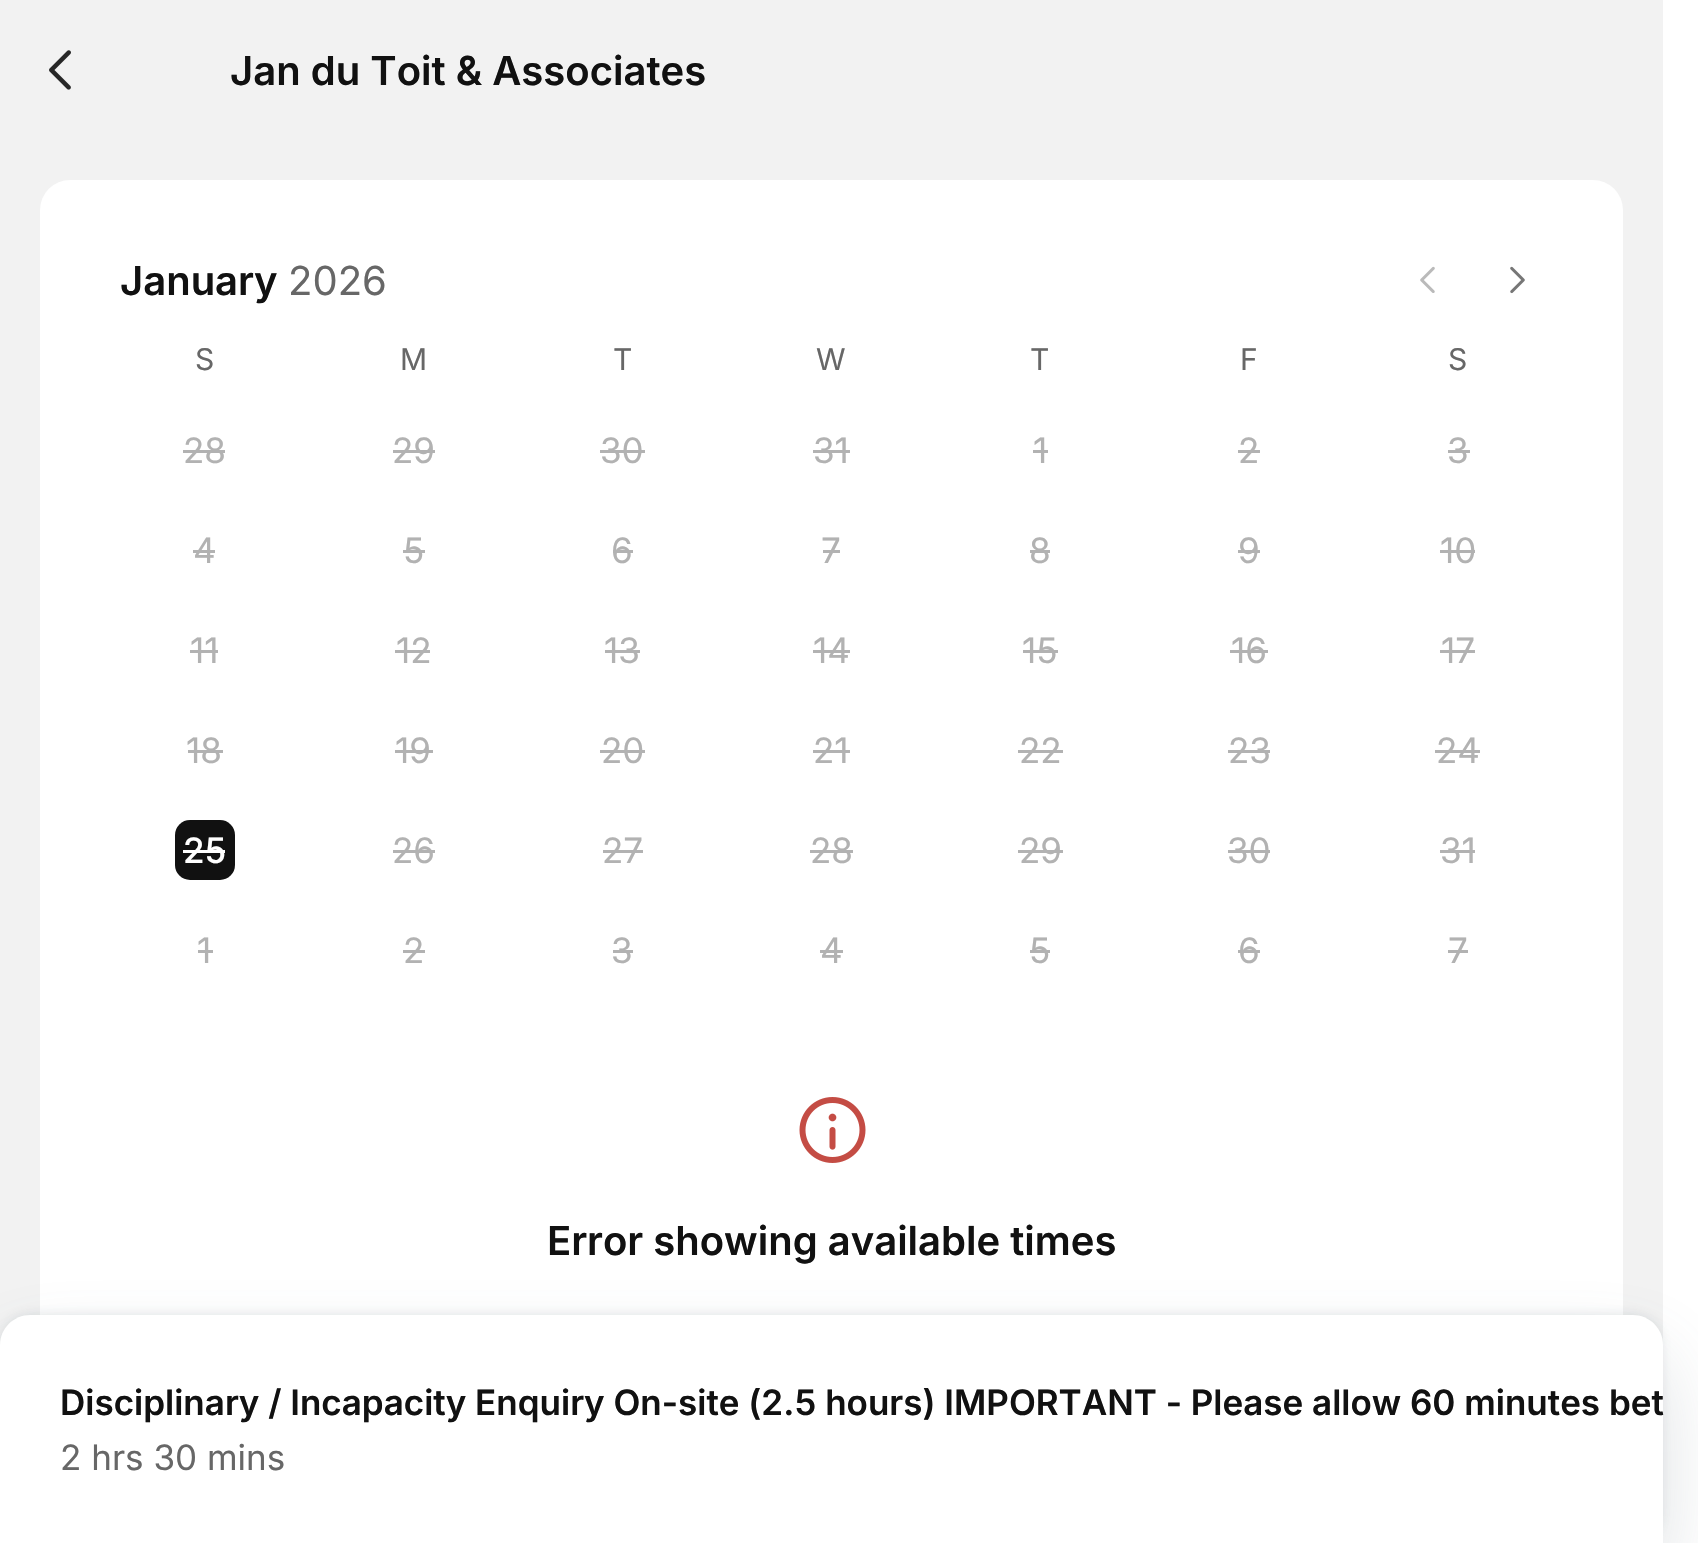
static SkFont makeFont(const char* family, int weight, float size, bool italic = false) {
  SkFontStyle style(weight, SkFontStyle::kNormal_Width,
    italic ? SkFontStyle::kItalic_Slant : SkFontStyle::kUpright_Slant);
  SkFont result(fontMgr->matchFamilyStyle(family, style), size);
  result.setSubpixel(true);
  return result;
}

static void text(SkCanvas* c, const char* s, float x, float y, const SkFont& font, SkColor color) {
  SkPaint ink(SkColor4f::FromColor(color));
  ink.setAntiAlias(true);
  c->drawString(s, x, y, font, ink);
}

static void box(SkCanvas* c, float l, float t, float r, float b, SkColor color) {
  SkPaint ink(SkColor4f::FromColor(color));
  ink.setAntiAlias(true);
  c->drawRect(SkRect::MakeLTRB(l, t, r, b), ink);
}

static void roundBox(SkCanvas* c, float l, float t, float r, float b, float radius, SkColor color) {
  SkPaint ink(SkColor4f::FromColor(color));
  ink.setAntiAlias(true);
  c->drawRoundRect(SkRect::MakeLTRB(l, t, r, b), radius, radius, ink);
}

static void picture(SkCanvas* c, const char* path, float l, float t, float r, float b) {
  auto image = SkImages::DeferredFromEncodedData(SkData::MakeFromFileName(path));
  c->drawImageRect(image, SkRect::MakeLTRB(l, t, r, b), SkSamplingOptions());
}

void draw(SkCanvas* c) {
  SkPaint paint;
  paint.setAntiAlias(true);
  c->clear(0xffffffff);
  box(c, 0, 0, 1663, 1345, 0xfff2f2f2);
  picture(c, "img_01.png", 49, 50, 71, 90);
  SkFont face1 = makeFont("Inter", 600, 40);
  text(c, "Jan du Toit & Associates", 230, 85, face1, 0xff111111);
  roundBox(c, 40, 180, 1623, 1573, 30, 0xffffffff);
  text(c, "January", 120, 295, face1, 0xff111111);
  SkFont face2 = makeFont("Inter", 400, 40);
  text(c, "2026", 288, 295, face2, 0xff676767);
  picture(c, "img_02.png", 1420, 266, 1435, 293);
  picture(c, "img_03.png", 1510, 266, 1525, 294);
  SkFont face3 = makeFont("Inter", 400, 30);
  text(c, "S", 195, 370, face3, 0xff676767);
  text(c, "M", 400, 370, face3, 0xff676767);
  text(c, "T", 613, 370, face3, 0xff676767);
  text(c, "W", 816, 370, face3, 0xff676767);
  text(c, "T", 1030, 370, face3, 0xff676767);
  text(c, "F", 1240, 370, face3, 0xff676767);
  text(c, "S", 1448, 370, face3, 0xff676767);
  SkFont face4 = makeFont("Inter", 400, 35);
  text(c, "28", 183, 463, face4, 0xffb2b2b2);
  box(c, 183, 450, 225, 453, 0xffb2b2b2);
  text(c, "29", 392, 463, face4, 0xffb2b2b2);
  box(c, 393, 450, 435, 453, 0xffb2b2b2);
  text(c, "30", 600, 463, face4, 0xffb2b2b2);
  box(c, 600, 450, 645, 453, 0xffb2b2b2);
  text(c, "31", 813, 463, face4, 0xffb2b2b2);
  box(c, 813, 450, 850, 453, 0xffb2b2b2);
  text(c, "1", 1033, 463, face4, 0xffb2b2b2);
  box(c, 1033, 450, 1048, 453, 0xffb2b2b2);
  text(c, "2", 1238, 463, face4, 0xffb2b2b2);
  box(c, 1238, 450, 1260, 453, 0xffb2b2b2);
  text(c, "3", 1447, 463, face4, 0xffb2b2b2);
  box(c, 1448, 450, 1470, 453, 0xffb2b2b2);
  text(c, "4", 193, 563, face4, 0xffb2b2b2);
  box(c, 193, 550, 215, 553, 0xffb2b2b2);
  text(c, "5", 403, 563, face4, 0xffb2b2b2);
  box(c, 403, 550, 425, 553, 0xffb2b2b2);
  text(c, "6", 611, 563, face4, 0xffb2b2b2);
  box(c, 613, 550, 633, 553, 0xffb2b2b2);
  text(c, "7", 821, 563, face4, 0xffb2b2b2);
  box(c, 823, 550, 840, 553, 0xffb2b2b2);
  text(c, "8", 1029, 563, face4, 0xffb2b2b2);
  box(c, 1030, 550, 1050, 553, 0xffb2b2b2);
  text(c, "9", 1238, 563, face4, 0xffb2b2b2);
  box(c, 1238, 550, 1260, 553, 0xffb2b2b2);
  text(c, "10", 1440, 563, face4, 0xffb2b2b2);
  box(c, 1440, 550, 1475, 553, 0xffb2b2b2);
  text(c, "11", 190, 663, face4, 0xffb2b2b2);
  box(c, 190, 650, 218, 653, 0xffb2b2b2);
  text(c, "12", 396, 663, face4, 0xffb2b2b2);
  box(c, 395, 650, 430, 653, 0xffb2b2b2);
  text(c, "13", 604, 663, face4, 0xffb2b2b2);
  box(c, 605, 650, 640, 653, 0xffb2b2b2);
  text(c, "14", 813, 663, face4, 0xffb2b2b2);
  box(c, 813, 650, 850, 653, 0xffb2b2b2);
  text(c, "15", 1022, 663, face4, 0xffb2b2b2);
  box(c, 1023, 650, 1058, 653, 0xffb2b2b2);
  text(c, "16", 1231, 663, face4, 0xffb2b2b2);
  box(c, 1230, 650, 1268, 653, 0xffb2b2b2);
  text(c, "17", 1441, 663, face4, 0xffb2b2b2);
  box(c, 1440, 650, 1475, 653, 0xffb2b2b2);
  text(c, "18", 186, 763, face4, 0xffb2b2b2);
  box(c, 188, 750, 223, 753, 0xffb2b2b2);
  text(c, "19", 395, 763, face4, 0xffb2b2b2);
  box(c, 395, 750, 433, 753, 0xffb2b2b2);
  text(c, "20", 601, 763, face4, 0xffb2b2b2);
  box(c, 600, 750, 645, 753, 0xffb2b2b2);
  text(c, "21", 813, 763, face4, 0xffb2b2b2);
  box(c, 813, 750, 850, 753, 0xffb2b2b2);
  text(c, "22", 1019, 763, face4, 0xffb2b2b2);
  box(c, 1018, 750, 1063, 753, 0xffb2b2b2);
  text(c, "23", 1228, 763, face4, 0xffb2b2b2);
  box(c, 1228, 750, 1270, 753, 0xffb2b2b2);
  text(c, "24", 1436, 763, face4, 0xffb2b2b2);
  box(c, 1435, 750, 1480, 753, 0xffb2b2b2);
  roundBox(c, 175, 820, 235, 880, 15, 0xff111111);
  SkFont face5 = makeFont("Inter", 500, 35);
  text(c, "25", 183, 863, face5, 0xffffffff);
  box(c, 183, 850, 225, 853, 0xffffffff);
  text(c, "26", 392, 863, face4, 0xffb2b2b2);
  box(c, 393, 850, 435, 853, 0xffb2b2b2);
  text(c, "27", 602, 863, face4, 0xffb2b2b2);
  box(c, 603, 850, 643, 853, 0xffb2b2b2);
  text(c, "28", 810, 863, face4, 0xffb2b2b2);
  box(c, 810, 850, 853, 853, 0xffb2b2b2);
  text(c, "29", 1019, 863, face4, 0xffb2b2b2);
  box(c, 1018, 850, 1063, 853, 0xffb2b2b2);
  text(c, "30", 1227, 863, face4, 0xffb2b2b2);
  box(c, 1228, 850, 1270, 853, 0xffb2b2b2);
  text(c, "31", 1440, 863, face4, 0xffb2b2b2);
  box(c, 1440, 850, 1475, 853, 0xffb2b2b2);
  text(c, "1", 197, 963, face4, 0xffb2b2b2);
  box(c, 198, 950, 213, 953, 0xffb2b2b2);
  text(c, "2", 403, 963, face4, 0xffb2b2b2);
  box(c, 403, 950, 425, 953, 0xffb2b2b2);
  text(c, "3", 611, 963, face4, 0xffb2b2b2);
  box(c, 613, 950, 633, 953, 0xffb2b2b2);
  text(c, "4", 820, 963, face4, 0xffb2b2b2);
  box(c, 820, 950, 843, 953, 0xffb2b2b2);
  text(c, "5", 1029, 963, face4, 0xffb2b2b2);
  box(c, 1030, 950, 1050, 953, 0xffb2b2b2);
  text(c, "6", 1238, 963, face4, 0xffb2b2b2);
  box(c, 1238, 950, 1260, 953, 0xffb2b2b2);
  text(c, "7", 1448, 963, face4, 0xffb2b2b2);
  box(c, 1448, 950, 1468, 953, 0xffb2b2b2);
  picture(c, "img_04.png", 799, 1097, 866, 1163);
  text(c, "Error showing available times", 547, 1255, face1, 0xff111111);
  paint.setColor(0x33586874);
  paint.setMaskFilter(SkMaskFilter::MakeBlur(kNormal_SkBlurStyle, 40));
  c->drawRoundRect(SkRect::MakeLTRB(0, 1355, 1663, 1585), 30, 30, paint);
  paint.setMaskFilter(nullptr);
  paint.setColor(0x1f586874);
  paint.setMaskFilter(SkMaskFilter::MakeBlur(kNormal_SkBlurStyle, 5));
  c->drawRoundRect(SkRect::MakeLTRB(0, 1313, 1663, 1543), 30, 30, paint);
  paint.setMaskFilter(nullptr);
  paint.setColor(0xffffffff);
  c->drawPath(SkPathBuilder().moveTo(30, 1315).lineTo(1633, 1315).cubicTo(1649.5f, 1315, 1663, 1328.5f, 1663, 1345).lineTo(1663, 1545).lineTo(0, 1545).lineTo(0, 1345).cubicTo(0, 1328.5f, 13.5f, 1315, 30, 1315).close().detach(), paint);
  SkFont face6 = makeFont("Inter", 600, 35);
  text(c, "Disciplinary / Incapacity Enquiry On-site (2.5 hours) IMPORTANT - Please allow 60 minutes bet", 60, 1415, face6, 0xff111111);
  text(c, "2 hrs 30 mins", 60, 1470, face4, 0xff676767);
}
